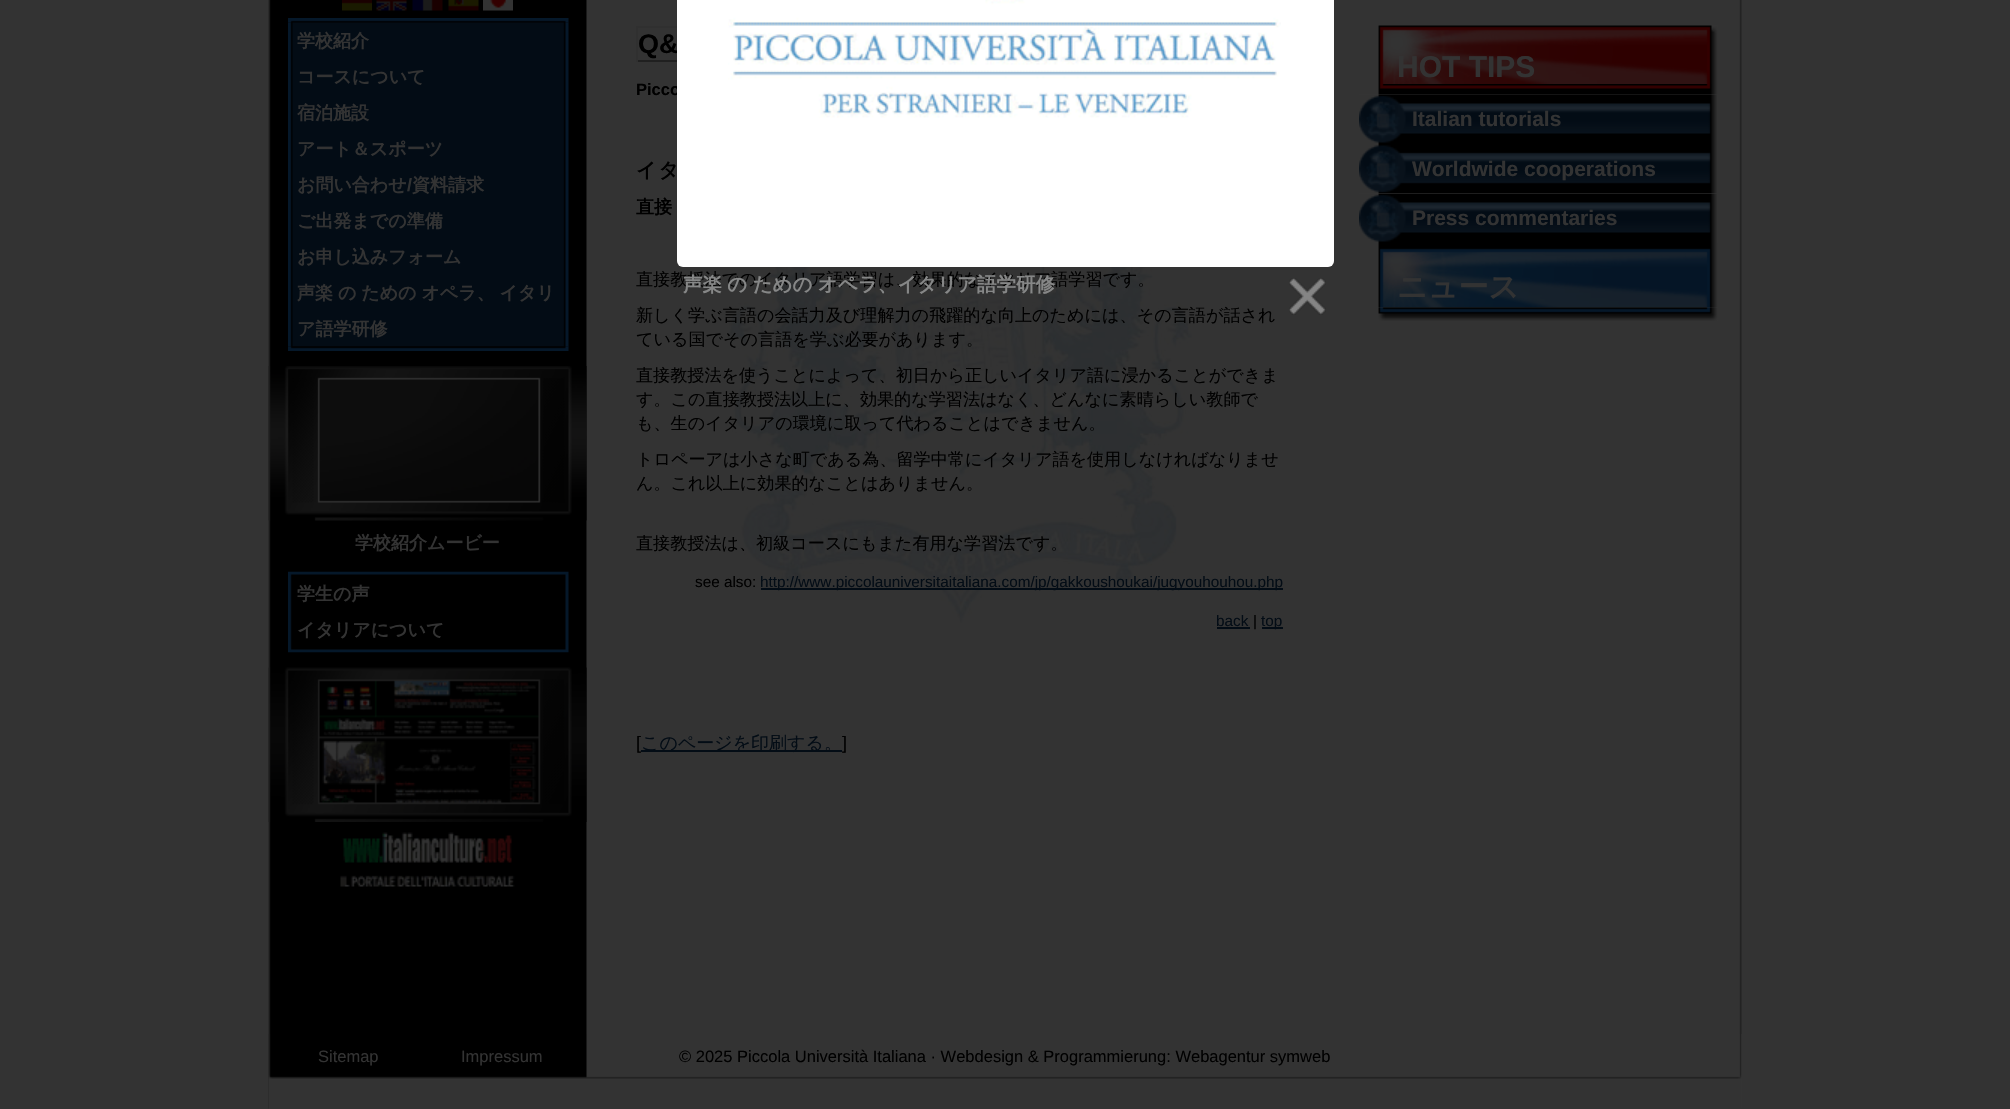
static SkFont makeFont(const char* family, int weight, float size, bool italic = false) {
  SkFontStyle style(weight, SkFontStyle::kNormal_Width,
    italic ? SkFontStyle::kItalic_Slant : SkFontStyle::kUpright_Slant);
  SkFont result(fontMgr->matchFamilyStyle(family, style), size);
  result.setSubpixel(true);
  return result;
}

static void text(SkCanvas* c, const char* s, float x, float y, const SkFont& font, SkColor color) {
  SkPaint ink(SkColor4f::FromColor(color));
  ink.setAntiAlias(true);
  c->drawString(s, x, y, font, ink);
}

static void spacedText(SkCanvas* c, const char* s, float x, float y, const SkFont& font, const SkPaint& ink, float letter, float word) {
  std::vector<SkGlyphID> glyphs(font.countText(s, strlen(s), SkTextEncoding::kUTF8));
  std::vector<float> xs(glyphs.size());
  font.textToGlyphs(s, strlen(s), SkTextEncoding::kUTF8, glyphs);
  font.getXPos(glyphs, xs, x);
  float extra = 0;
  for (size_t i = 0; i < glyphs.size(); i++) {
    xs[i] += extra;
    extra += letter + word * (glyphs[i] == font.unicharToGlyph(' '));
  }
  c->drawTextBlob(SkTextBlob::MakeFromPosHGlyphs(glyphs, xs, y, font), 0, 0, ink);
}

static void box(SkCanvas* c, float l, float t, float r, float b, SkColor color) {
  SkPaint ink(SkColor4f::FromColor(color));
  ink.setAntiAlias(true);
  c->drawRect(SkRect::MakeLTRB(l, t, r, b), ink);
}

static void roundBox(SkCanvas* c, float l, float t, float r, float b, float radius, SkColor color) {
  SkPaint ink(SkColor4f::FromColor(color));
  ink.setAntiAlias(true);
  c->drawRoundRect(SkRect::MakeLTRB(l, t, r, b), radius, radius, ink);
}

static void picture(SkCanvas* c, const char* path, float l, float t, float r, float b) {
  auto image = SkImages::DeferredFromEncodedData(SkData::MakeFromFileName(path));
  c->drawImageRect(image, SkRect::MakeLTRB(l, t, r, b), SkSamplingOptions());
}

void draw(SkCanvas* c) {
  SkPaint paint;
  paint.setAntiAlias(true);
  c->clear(0xff333333);
  picture(c, "img_01.png", 268, 0, 1742, 1109);
  picture(c, "img_02.png", 342, 0, 372, 11);
  picture(c, "img_03.png", 376, 0, 407, 11);
  picture(c, "img_04.png", 412, 0, 443, 11);
  picture(c, "img_05.png", 448, 0, 479, 11);
  picture(c, "img_06.png", 483, 0, 513, 11);
  picture(c, "img_07.png", 288, 18, 569, 23);
  picture(c, "img_08.png", 288, 22, 569, 347);
  SkFont face1 = makeFont("WenQuanYi Zen Hei", 700, 18);
  text(c, "学校紹介", 297, 47, face1, 0xff333333);
  text(c, "コースについて", 297, 83, face1, 0xff333333);
  text(c, "宿泊施設", 297, 119, face1, 0xff333333);
  text(c, "アート＆スポーツ", 297, 155, face1, 0xff333333);
  text(c, "お問い合わせ", 297, 191, face1, 0xff333333);
  SkFont face2 = makeFont("Liberation Sans", 700, 18);
  text(c, "/", 407, 191, face2, 0xff333333);
  text(c, "資料請求", 412, 191, face1, 0xff333333);
  text(c, "ご出発までの準備", 297, 227, face1, 0xff333333);
  text(c, "お申し込みフォーム", 297, 263, face1, 0xff333333);
  paint.setColor(0xff333333);
  spacedText(c, "声楽 の ための オペラ、 イタリ", 297, 299, face1, paint, 0, -0.5f);
  text(c, "ア語学研修", 297, 335, face1, 0xff333333);
  picture(c, "img_09.png", 288, 346, 569, 351);
  picture(c, "img_10.png", 268, 366, 587, 521);
  text(c, "学校紹介ムービー", 355, 549, face1, 0xff333333);
  picture(c, "img_11.png", 288, 571, 569, 576);
  picture(c, "img_12.png", 288, 576, 569, 648);
  text(c, "学生の声", 297, 600, face1, 0xff333333);
  text(c, "イタリアについて", 297, 636, face1, 0xff333333);
  picture(c, "img_13.png", 288, 648, 569, 653);
  picture(c, "img_14.png", 268, 667, 587, 822);
  picture(c, "img_15.png", 340, 832, 515, 887);
  picture(c, "img_16.png", 727, 267, 1192, 623);
  box(c, 636, 26, 677, 28, 0xff303030);
  box(c, 636, 60, 677, 62, 0xff202020);
  box(c, 636, 26, 638, 62, 0xff303030);
  SkFont face3 = makeFont("Liberation Sans", 700, 27);
  text(c, "Q&", 638, 53, face3, 0xff000000);
  SkFont face4 = makeFont("Liberation Sans", 700, 16.5f);
  text(c, "Picco", 636, 95, face4, 0xff000000);
  SkFont face5 = makeFont("WenQuanYi Zen Hei", 700, 20);
  paint.setColor(0xff000000);
  spacedText(c, "イタ", 636, 177, face5, paint, 2, 0);
  text(c, "直接", 636, 213, face1, 0xff000000);
  SkFont face6 = makeFont("WenQuanYi Zen Hei", 500, 17.1f);
  text(c, "直接教授法でのイタリア語学習は、効果的なイタリア語学習です。", 636, 285, face6, 0xff000000);
  text(c, "新しく学ぶ言語の会話力及び理解力の飛躍的な向上のためには、その言語が話され", 636, 321, face6, 0xff000000);
  text(c, "ている国でその言語を学ぶ必要があります。", 636, 345, face6, 0xff000000);
  text(c, "直接教授法を使うことによって、初日から正しいイタリア語に浸かることができま", 636, 381, face6, 0xff000000);
  text(c, "す。この直接教授法以上に、効果的な学習法はなく、どんなに素晴らしい教師で", 636, 405, face6, 0xff000000);
  text(c, "も、生のイタリアの環境に取って代わることはできません。", 636, 429, face6, 0xff000000);
  text(c, "トロペーアは小さな町である為、留学中常にイタリア語を使用しなければなりませ", 636, 465, face6, 0xff000000);
  text(c, "ん。これ以上に効果的なことはありません。", 636, 489, face6, 0xff000000);
  text(c, "直接教授法は、初級コースにもまた有用な学習法です。", 636, 549, face6, 0xff000000);
  SkFont face7 = makeFont("Liberation Sans", 400, 15.3f);
  text(c, "see also:", 695, 587, face7, 0xff000000);
  box(c, 761, 588, 1283, 590, 0xff030c15);
  text(c, "http://www.piccolauniversitaitaliana.com/jp/gakkoushoukai/jugyouhouhou.php", 760, 587, face7, 0xff030c15);
  text(c, "back", 1216, 626, face7, 0xff030c15);
  box(c, 1217, 627, 1250, 629, 0xff030c15);
  text(c, "|", 1253, 626, face7, 0xff000000);
  box(c, 1262, 627, 1283, 629, 0xff030c15);
  text(c, "top", 1261, 626, face7, 0xff030c15);
  SkFont face8 = makeFont("Liberation Sans", 400, 18);
  text(c, "[", 636, 749, face8, 0xff000000);
  box(c, 641, 750, 842, 752, 0xff030c15);
  SkFont face9 = makeFont("WenQuanYi Zen Hei", 500, 18);
  text(c, "このページを印刷する。", 641, 749, face9, 0xff030c15);
  text(c, "]", 842, 749, face8, 0xff000000);
  picture(c, "img_17.png", 1378, 25, 1718, 84);
  SkFont face10 = makeFont("Liberation Sans", 700, 30);
  text(c, "HOT TIPS", 1397, 77, face10, 0xff333333);
  picture(c, "img_18.png", 1378, 84, 1718, 95);
  picture(c, "img_19.png", 1359, 94, 1718, 144);
  SkFont face11 = makeFont("Liberation Sans", 700, 21);
  text(c, "Italian tutorials", 1412, 126, face11, 0xff333333);
  picture(c, "img_20.png", 1359, 144, 1718, 194);
  text(c, "Worldwide cooperations", 1412, 176, face11, 0xff333333);
  picture(c, "img_21.png", 1359, 193, 1718, 243);
  text(c, "Press commentaries", 1412, 225, face11, 0xff333333);
  picture(c, "img_22.png", 1378, 243, 1718, 308);
  SkFont face12 = makeFont("WenQuanYi Zen Hei", 700, 30);
  text(c, "ニュース", 1397, 297, face12, 0xff333333);
  picture(c, "img_23.png", 1378, 307, 1718, 321);
  box(c, 269, 1034, 1742, 1109, 0xff333333);
  picture(c, "img_24.png", 268, 1034, 1742, 1108);
  SkFont face13 = makeFont("Liberation Sans", 400, 16.5f);
  text(c, "Sitemap", 318, 1062, face13, 0xff333333);
  text(c, "Impressum", 461, 1062, face13, 0xff333333);
  text(c, "© 2025 Piccola Università Italiana · Webdesign & Programmierung: Webagentur symweb", 679, 1062, face13, 0xff000000);
  roundBox(c, 677, -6, 1334, 267, 6, 0xffffffff);
  picture(c, "img_25.png", 728, 0, 1281, 118);
  SkFont face14 = makeFont("WenQuanYi Zen Hei", 700, 19.5f);
  paint.setColor(0xff868787);
  spacedText(c, "声楽 の ための オペラ、イタリア語学研修", 683, 291, face14, paint, 0, -0.5f);
  picture(c, "img_26.png", 1289, 278, 1326, 315);
}
